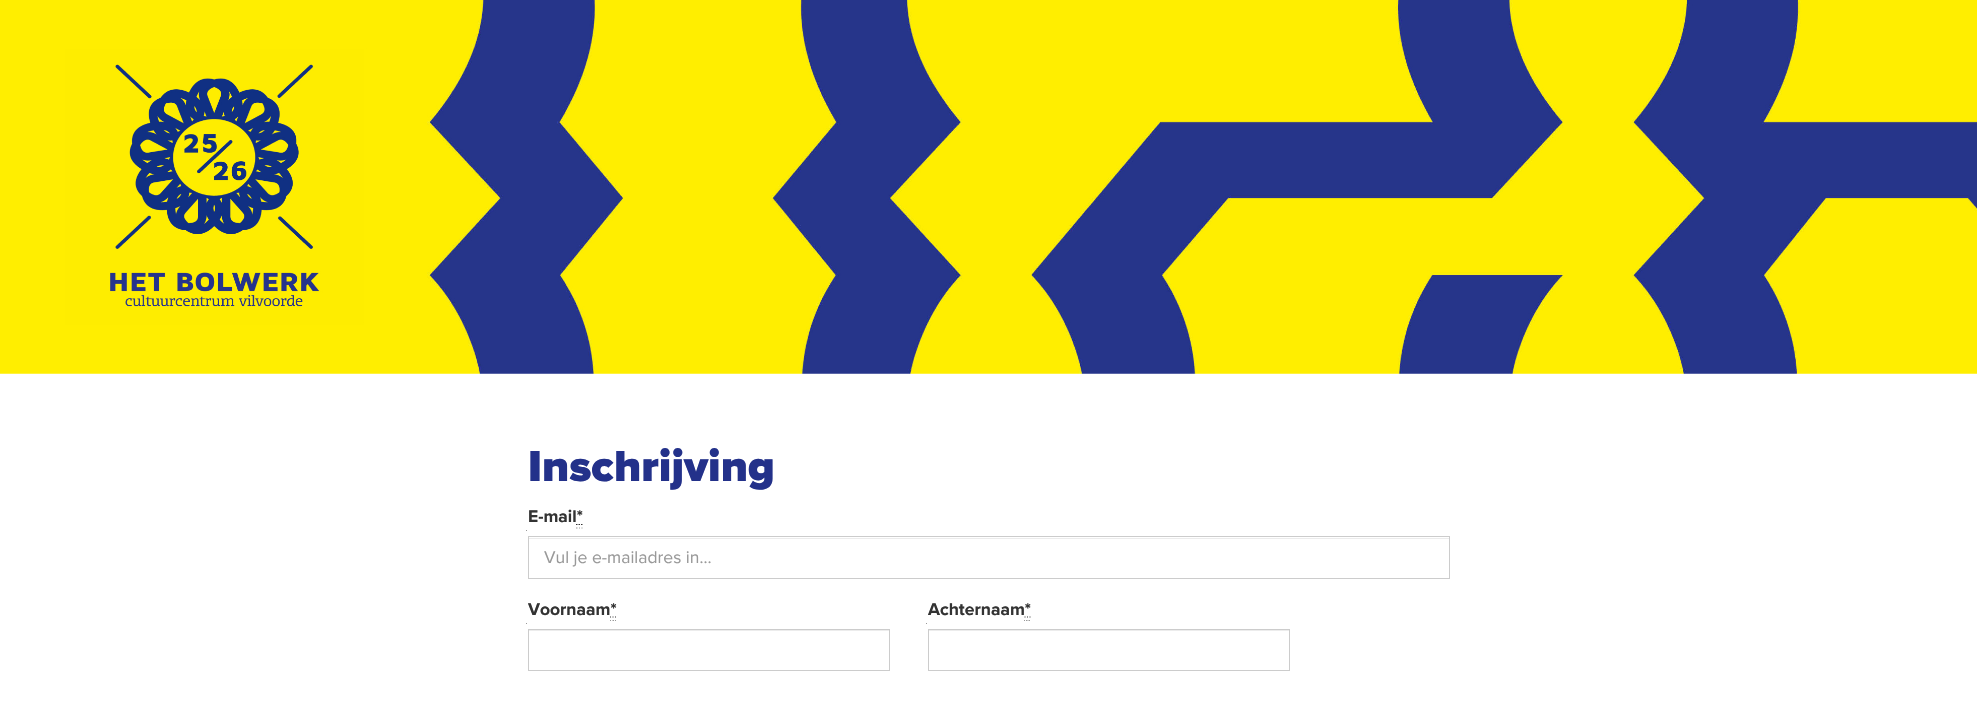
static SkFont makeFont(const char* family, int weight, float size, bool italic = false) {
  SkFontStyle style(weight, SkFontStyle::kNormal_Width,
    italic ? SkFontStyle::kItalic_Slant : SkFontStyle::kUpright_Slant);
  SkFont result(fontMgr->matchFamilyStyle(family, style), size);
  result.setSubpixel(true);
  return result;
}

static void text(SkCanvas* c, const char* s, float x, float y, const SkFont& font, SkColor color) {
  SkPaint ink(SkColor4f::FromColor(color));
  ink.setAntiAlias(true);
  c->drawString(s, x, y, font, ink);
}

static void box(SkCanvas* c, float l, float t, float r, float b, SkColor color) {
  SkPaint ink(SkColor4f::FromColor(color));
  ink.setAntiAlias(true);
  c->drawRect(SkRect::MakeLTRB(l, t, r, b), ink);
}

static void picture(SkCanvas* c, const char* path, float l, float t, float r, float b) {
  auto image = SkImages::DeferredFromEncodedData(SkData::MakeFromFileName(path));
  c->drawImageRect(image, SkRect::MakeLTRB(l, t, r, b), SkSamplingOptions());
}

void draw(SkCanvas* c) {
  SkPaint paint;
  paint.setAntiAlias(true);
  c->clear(0xffffffff);
  picture(c, "img_01.png", 0, 0, 1977, 374);
  SkFont face1 = makeFont("Proxima Nova", 900, 45);
  text(c, "Inschrijving", 528, 481, face1, 0xff23318a);
  SkFont face2 = makeFont("Proxima Nova", 700, 17.5f);
  text(c, "E-mail*", 528, 522, face2, 0xff333333);
  paint.setStyle(SkPaint::kStroke_Style);
  paint.setStrokeWidth(1.2f);
  paint.setColor(0xff333333);
  c->drawPath(SkPathBuilder().moveTo(576, 524.5f).lineTo(577.5f, 524.5f).moveTo(578.5f, 524.5f).lineTo(580, 524.5f).moveTo(581, 524.5f).lineTo(582.5f, 524.5f).detach(), paint);
  paint.setColor(0xff999999);
  c->drawPath(SkPathBuilder().moveTo(576, 528).lineTo(577.5f, 528).moveTo(579, 528).lineTo(580, 528).moveTo(581.5f, 528).lineTo(582.5f, 528).detach(), paint);
  box(c, 526, 530, 527, 531, 0xff999999);
  box(c, 529, 538, 1449, 539, 0xffececec);
  paint.setStrokeWidth(1);
  paint.setColor(0xffcccccc);
  c->drawRect(SkRect::MakeLTRB(528.5f, 536.5f, 1449.5f, 578.5f), paint);
  SkFont face3 = makeFont("Proxima Nova", 400, 17.5f);
  text(c, "Vul je e-mailadres in…", 544, 563, face3, 0xff999999);
  text(c, "Voornaam*", 528, 615, face2, 0xff333333);
  paint.setStrokeWidth(1.2f);
  paint.setColor(0xff333333);
  c->drawPath(SkPathBuilder().moveTo(610, 617).lineTo(611, 617).moveTo(612.5f, 617).lineTo(613.5f, 617).moveTo(615, 617).lineTo(616, 617).detach(), paint);
  paint.setColor(0xff999999);
  c->drawPath(SkPathBuilder().moveTo(610, 620.5f).lineTo(611, 620.5f).moveTo(612.5f, 620.5f).lineTo(614, 620.5f).moveTo(615, 620.5f).lineTo(616, 620.5f).detach(), paint);
  box(c, 526, 623, 527, 624, 0xff999999);
  box(c, 529, 630, 889, 631, 0xffececec);
  paint.setStrokeWidth(1);
  paint.setColor(0xffcccccc);
  c->drawRect(SkRect::MakeLTRB(528.5f, 629.5f, 889.5f, 670.5f), paint);
  text(c, "Achternaam*", 928, 615, face2, 0xff333333);
  paint.setStrokeWidth(1.2f);
  paint.setColor(0xff333333);
  c->drawPath(SkPathBuilder().moveTo(1024.5f, 617).lineTo(1025.5f, 617).moveTo(1027, 617).lineTo(1028, 617).moveTo(1029.5f, 617).lineTo(1030.5f, 617).detach(), paint);
  paint.setColor(0xff999999);
  c->drawPath(SkPathBuilder().moveTo(1024, 620.5f).lineTo(1025, 620.5f).moveTo(1026, 620.5f).lineTo(1027.5f, 620.5f).moveTo(1028.5f, 620.5f).lineTo(1030, 620.5f).detach(), paint);
  box(c, 926, 623, 927, 624, 0xff999999);
  box(c, 929, 630, 1289, 631, 0xffececec);
  paint.setStrokeWidth(1);
  paint.setColor(0xffcccccc);
  c->drawRect(SkRect::MakeLTRB(928.5f, 629.5f, 1289.5f, 670.5f), paint);
}
